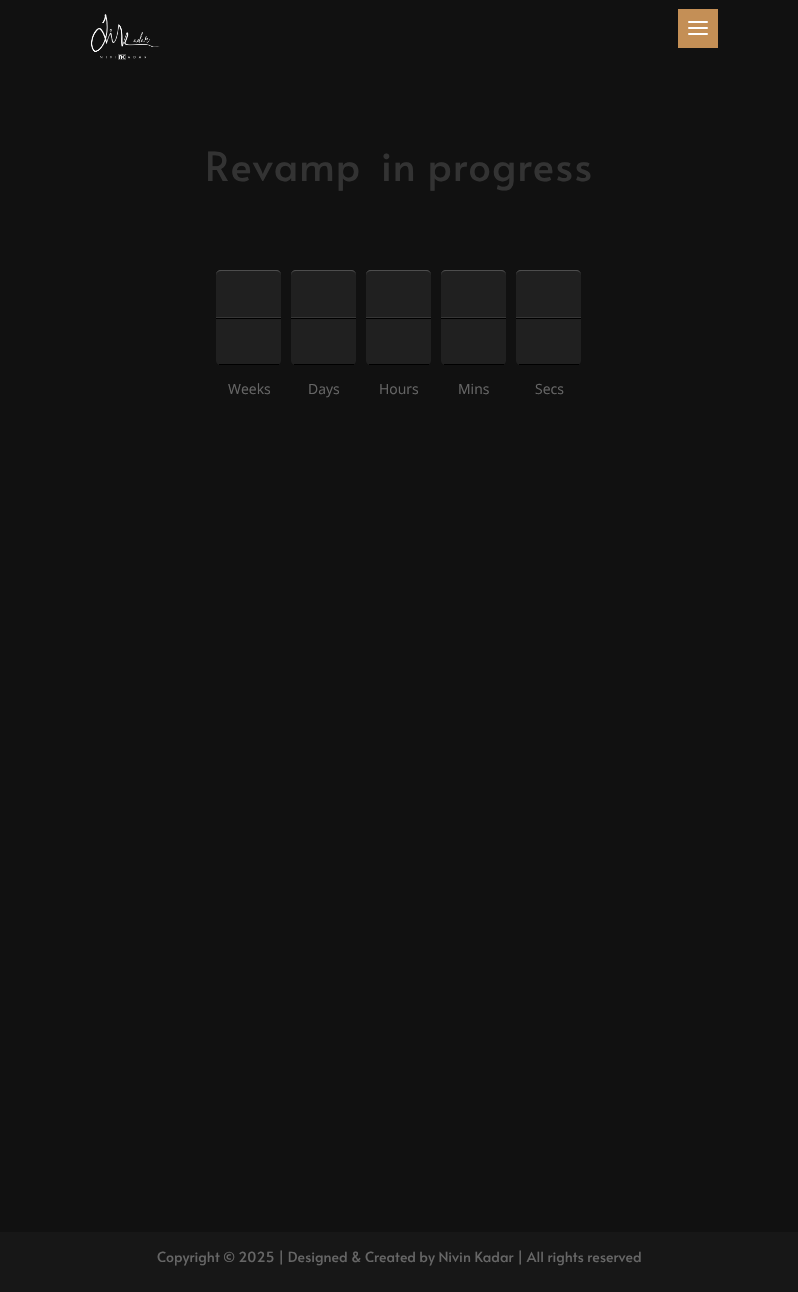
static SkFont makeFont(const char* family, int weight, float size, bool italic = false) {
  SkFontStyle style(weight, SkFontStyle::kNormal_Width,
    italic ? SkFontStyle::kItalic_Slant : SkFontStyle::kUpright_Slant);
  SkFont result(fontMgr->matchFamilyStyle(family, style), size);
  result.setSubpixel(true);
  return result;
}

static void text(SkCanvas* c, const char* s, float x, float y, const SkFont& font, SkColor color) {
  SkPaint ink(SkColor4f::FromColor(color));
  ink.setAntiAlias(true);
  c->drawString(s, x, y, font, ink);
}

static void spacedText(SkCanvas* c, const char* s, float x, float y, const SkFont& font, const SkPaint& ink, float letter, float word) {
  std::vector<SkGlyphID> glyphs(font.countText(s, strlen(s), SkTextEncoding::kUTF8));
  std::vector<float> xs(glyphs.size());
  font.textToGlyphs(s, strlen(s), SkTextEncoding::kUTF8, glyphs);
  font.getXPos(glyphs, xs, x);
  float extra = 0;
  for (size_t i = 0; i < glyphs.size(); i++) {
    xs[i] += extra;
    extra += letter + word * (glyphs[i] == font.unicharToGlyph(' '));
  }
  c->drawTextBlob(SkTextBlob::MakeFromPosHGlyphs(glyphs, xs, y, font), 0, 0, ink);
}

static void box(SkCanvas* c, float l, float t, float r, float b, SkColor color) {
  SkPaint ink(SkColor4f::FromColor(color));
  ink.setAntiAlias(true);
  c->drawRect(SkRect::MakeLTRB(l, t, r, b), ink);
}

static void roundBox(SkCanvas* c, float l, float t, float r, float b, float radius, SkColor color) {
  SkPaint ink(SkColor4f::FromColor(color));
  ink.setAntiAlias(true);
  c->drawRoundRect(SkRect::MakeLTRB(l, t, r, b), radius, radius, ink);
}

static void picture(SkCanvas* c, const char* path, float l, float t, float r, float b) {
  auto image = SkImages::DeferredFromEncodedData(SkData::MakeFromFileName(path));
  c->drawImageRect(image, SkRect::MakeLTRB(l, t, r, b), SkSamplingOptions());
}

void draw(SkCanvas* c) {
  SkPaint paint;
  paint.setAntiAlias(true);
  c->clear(0xff111111);
  picture(c, "img_01.png", 90, 14, 160, 60);
  box(c, 678, 9, 718, 48, 0xffc48f56);
  roundBox(c, 688, 21, 708, 23, 1, 0xffffffff);
  roundBox(c, 688, 27, 708, 29, 1, 0xffffffff);
  roundBox(c, 688, 33, 708, 35, 1, 0xffffffff);
  SkFont face1 = makeFont("Alata", 400, 40);
  paint.setColor(0xff333333);
  spacedText(c, "Revamp", 205, 181, face1, paint, 1, 0);
  spacedText(c, "in progress", 381, 181, face1, paint, 1, 0);
  paint.setColor(0xff202020);
  c->drawPath(SkPathBuilder().moveTo(221, 270).lineTo(276, 270).cubicTo(279, 270, 281, 272, 281, 275).lineTo(281, 318).lineTo(216, 318).lineTo(216, 275).cubicTo(216, 272, 218, 270, 221, 270).close().detach(), paint);
  paint.setColor(0x33ffffff);
  c->drawPath(SkPathBuilder().moveTo(221, 270).cubicTo(218, 270, 216, 272, 216, 275).cubicTo(216, 273, 218, 271, 221, 271).lineTo(276, 271).cubicTo(279, 271, 281, 273, 281, 275).cubicTo(281, 272, 279, 270, 276, 270).close().detach(), paint);
  box(c, 216, 317, 281, 318, 0xff363636);
  paint.setColor(0xff202020);
  c->drawPath(SkPathBuilder().moveTo(216, 318).lineTo(281, 318).lineTo(281, 360).cubicTo(281, 363, 279, 365, 276, 365).lineTo(221, 365).cubicTo(218, 365, 216, 363, 216, 360).close().detach(), paint);
  box(c, 216, 318, 281, 319, 0xff000000);
  box(c, 219, 364, 279, 365, 0xff000000);
  SkFont face2 = makeFont("Open Sans", 400, 14);
  text(c, "Weeks", 228, 394, face2, 0xff666666);
  c->drawPath(SkPathBuilder().moveTo(296, 270).lineTo(351, 270).cubicTo(354, 270, 356, 272, 356, 275).lineTo(356, 318).lineTo(291, 318).lineTo(291, 275).cubicTo(291, 272, 293, 270, 296, 270).close().detach(), paint);
  paint.setColor(0x33ffffff);
  c->drawPath(SkPathBuilder().moveTo(296, 270).cubicTo(293, 270, 291, 272, 291, 275).cubicTo(291, 273, 293, 271, 296, 271).lineTo(351, 271).cubicTo(354, 271, 356, 273, 356, 275).cubicTo(356, 272, 354, 270, 351, 270).close().detach(), paint);
  box(c, 291, 317, 356, 318, 0xff363636);
  paint.setColor(0xff202020);
  c->drawPath(SkPathBuilder().moveTo(291, 318).lineTo(356, 318).lineTo(356, 360).cubicTo(356, 363, 354, 365, 351, 365).lineTo(296, 365).cubicTo(293, 365, 291, 363, 291, 360).close().detach(), paint);
  box(c, 291, 318, 356, 319, 0xff000000);
  box(c, 294, 364, 354, 365, 0xff000000);
  text(c, "Days", 308, 394, face2, 0xff666666);
  c->drawPath(SkPathBuilder().moveTo(371, 270).lineTo(426, 270).cubicTo(429, 270, 431, 272, 431, 275).lineTo(431, 318).lineTo(366, 318).lineTo(366, 275).cubicTo(366, 272, 368, 270, 371, 270).close().detach(), paint);
  paint.setColor(0x33ffffff);
  c->drawPath(SkPathBuilder().moveTo(371, 270).cubicTo(368, 270, 366, 272, 366, 275).cubicTo(366, 273, 368, 271, 371, 271).lineTo(426, 271).cubicTo(429, 271, 431, 273, 431, 275).cubicTo(431, 272, 429, 270, 426, 270).close().detach(), paint);
  box(c, 366, 317, 431, 318, 0xff363636);
  paint.setColor(0xff202020);
  c->drawPath(SkPathBuilder().moveTo(366, 318).lineTo(431, 318).lineTo(431, 360).cubicTo(431, 363, 429, 365, 426, 365).lineTo(371, 365).cubicTo(368, 365, 366, 363, 366, 360).close().detach(), paint);
  box(c, 366, 318, 431, 319, 0xff000000);
  box(c, 369, 364, 429, 365, 0xff000000);
  text(c, "Hours", 379, 394, face2, 0xff666666);
  c->drawPath(SkPathBuilder().moveTo(446, 270).lineTo(501, 270).cubicTo(504, 270, 506, 272, 506, 275).lineTo(506, 318).lineTo(441, 318).lineTo(441, 275).cubicTo(441, 272, 443, 270, 446, 270).close().detach(), paint);
  paint.setColor(0x33ffffff);
  c->drawPath(SkPathBuilder().moveTo(446, 270).cubicTo(443, 270, 441, 272, 441, 275).cubicTo(441, 273, 443, 271, 446, 271).lineTo(501, 271).cubicTo(504, 271, 506, 273, 506, 275).cubicTo(506, 272, 504, 270, 501, 270).close().detach(), paint);
  box(c, 441, 317, 506, 318, 0xff363636);
  paint.setColor(0xff202020);
  c->drawPath(SkPathBuilder().moveTo(441, 318).lineTo(506, 318).lineTo(506, 360).cubicTo(506, 363, 504, 365, 501, 365).lineTo(446, 365).cubicTo(443, 365, 441, 363, 441, 360).close().detach(), paint);
  box(c, 441, 318, 506, 319, 0xff000000);
  box(c, 444, 364, 504, 365, 0xff000000);
  text(c, "Mins", 458, 394, face2, 0xff666666);
  c->drawPath(SkPathBuilder().moveTo(521, 270).lineTo(576, 270).cubicTo(579, 270, 581, 272, 581, 275).lineTo(581, 318).lineTo(516, 318).lineTo(516, 275).cubicTo(516, 272, 518, 270, 521, 270).close().detach(), paint);
  paint.setColor(0x33ffffff);
  c->drawPath(SkPathBuilder().moveTo(521, 270).cubicTo(518, 270, 516, 272, 516, 275).cubicTo(516, 273, 518, 271, 521, 271).lineTo(576, 271).cubicTo(579, 271, 581, 273, 581, 275).cubicTo(581, 272, 579, 270, 576, 270).close().detach(), paint);
  box(c, 516, 317, 581, 318, 0xff363636);
  paint.setColor(0xff202020);
  c->drawPath(SkPathBuilder().moveTo(516, 318).lineTo(581, 318).lineTo(581, 360).cubicTo(581, 363, 579, 365, 576, 365).lineTo(521, 365).cubicTo(518, 365, 516, 363, 516, 360).close().detach(), paint);
  box(c, 516, 318, 581, 319, 0xff000000);
  box(c, 519, 364, 579, 365, 0xff000000);
  text(c, "Secs", 535, 394, face2, 0xff666666);
  box(c, 0, 1232, 798, 1292, 0xff171717);
  SkFont face3 = makeFont("Alata", 400, 14);
  text(c, "Copyright © 2025 | Designed & Created by Nivin Kadar | All rights reserved", 157, 1262, face3, 0xff666666);
}
